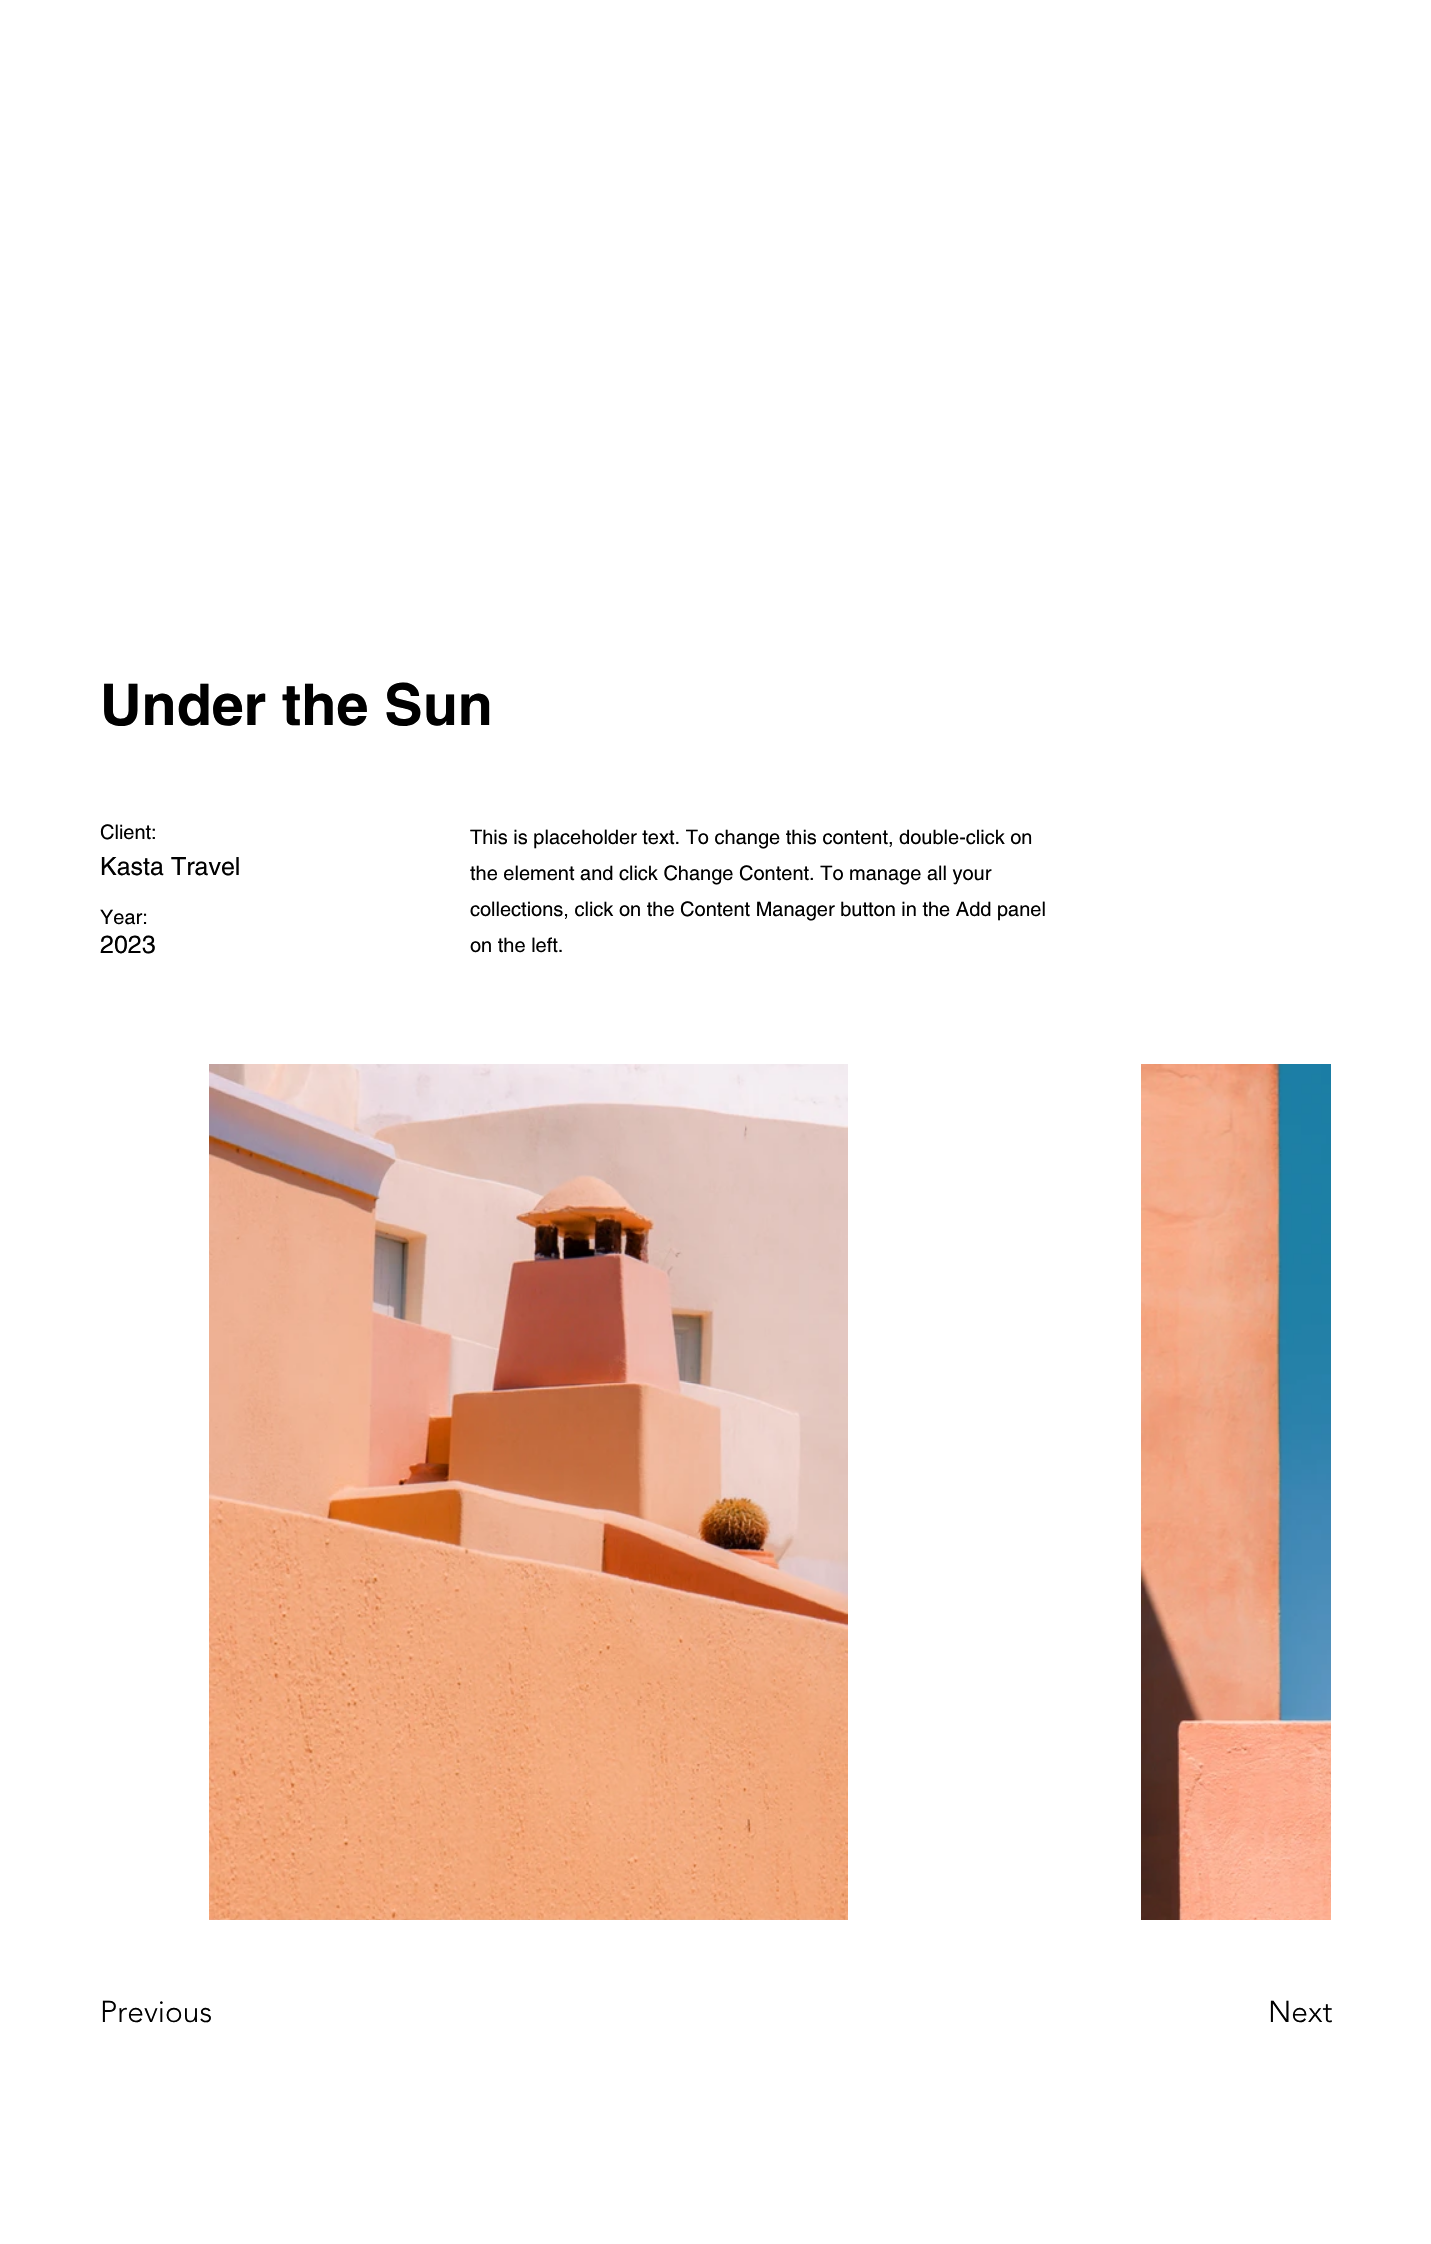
static SkFont makeFont(const char* family, int weight, float size, bool italic = false) {
  SkFontStyle style(weight, SkFontStyle::kNormal_Width,
    italic ? SkFontStyle::kItalic_Slant : SkFontStyle::kUpright_Slant);
  SkFont result(fontMgr->matchFamilyStyle(family, style), size);
  result.setSubpixel(true);
  return result;
}

static void text(SkCanvas* c, const char* s, float x, float y, const SkFont& font, SkColor color) {
  SkPaint ink(SkColor4f::FromColor(color));
  ink.setAntiAlias(true);
  c->drawString(s, x, y, font, ink);
}

static void picture(SkCanvas* c, const char* path, float l, float t, float r, float b) {
  auto image = SkImages::DeferredFromEncodedData(SkData::MakeFromFileName(path));
  c->drawImageRect(image, SkRect::MakeLTRB(l, t, r, b), SkSamplingOptions());
}

void draw(SkCanvas* c) {
  SkPaint paint;
  paint.setAntiAlias(true);
  c->clear(0xffffffff);
  SkFont face1 = makeFont("helvetica", 700, 57.5f);
  text(c, "Under the Sun", 100, 725, face1, 0xff000000);
  SkFont face2 = makeFont("helvetica", 400, 20);
  text(c, "Client:", 100, 839, face2, 0xff000000);
  text(c, "This is placeholder text. To change this content, double-click on", 470, 844, face2, 0xff000000);
  text(c, "the element and click Change Content. To manage all your", 470, 880, face2, 0xff000000);
  text(c, "collections, click on the Content Manager button in the Add panel", 470, 916, face2, 0xff000000);
  text(c, "on the left.", 470, 952, face2, 0xff000000);
  SkFont face3 = makeFont("helvetica", 400, 25);
  text(c, "Kasta Travel", 100, 875, face3, 0xff000000);
  text(c, "Year:", 100, 924, face2, 0xff000000);
  text(c, "2023", 100, 953, face3, 0xff000000);
  picture(c, "img_01.png", 209, 1064, 848, 1920);
  picture(c, "img_02.png", 1141, 1064, 1331, 1920);
  SkFont face4 = makeFont("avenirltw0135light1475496", 300, 30);
  text(c, "Previous", 100, 2022, face4, 0xff000000);
  text(c, "Next", 1268, 2022, face4, 0xff000000);
}
